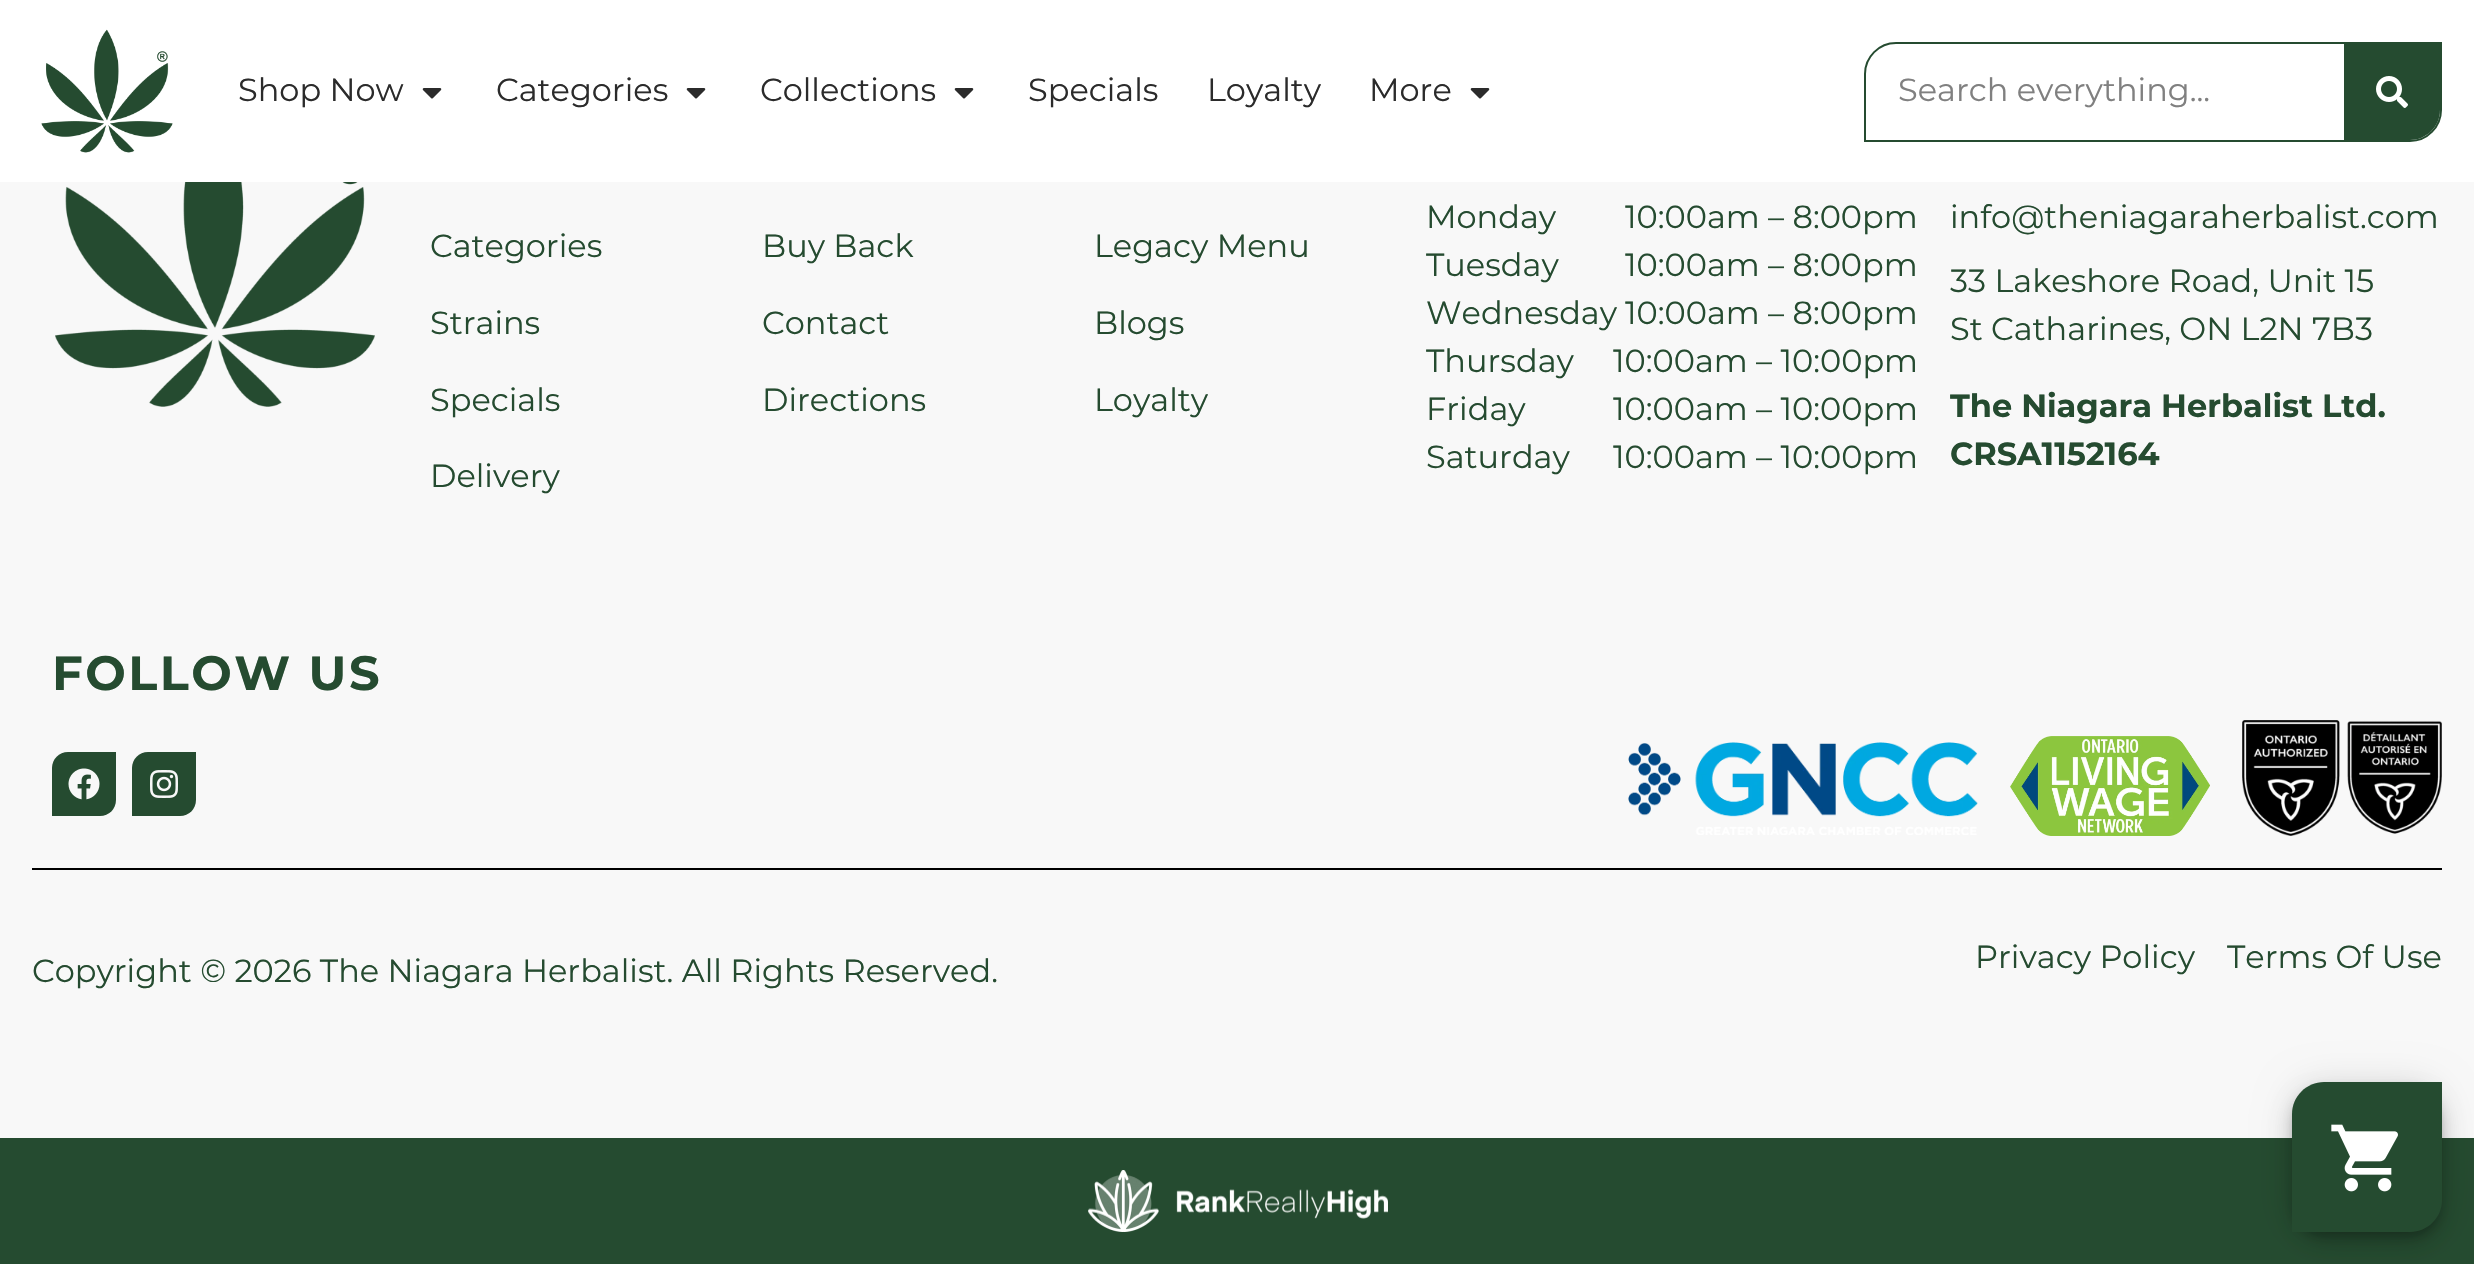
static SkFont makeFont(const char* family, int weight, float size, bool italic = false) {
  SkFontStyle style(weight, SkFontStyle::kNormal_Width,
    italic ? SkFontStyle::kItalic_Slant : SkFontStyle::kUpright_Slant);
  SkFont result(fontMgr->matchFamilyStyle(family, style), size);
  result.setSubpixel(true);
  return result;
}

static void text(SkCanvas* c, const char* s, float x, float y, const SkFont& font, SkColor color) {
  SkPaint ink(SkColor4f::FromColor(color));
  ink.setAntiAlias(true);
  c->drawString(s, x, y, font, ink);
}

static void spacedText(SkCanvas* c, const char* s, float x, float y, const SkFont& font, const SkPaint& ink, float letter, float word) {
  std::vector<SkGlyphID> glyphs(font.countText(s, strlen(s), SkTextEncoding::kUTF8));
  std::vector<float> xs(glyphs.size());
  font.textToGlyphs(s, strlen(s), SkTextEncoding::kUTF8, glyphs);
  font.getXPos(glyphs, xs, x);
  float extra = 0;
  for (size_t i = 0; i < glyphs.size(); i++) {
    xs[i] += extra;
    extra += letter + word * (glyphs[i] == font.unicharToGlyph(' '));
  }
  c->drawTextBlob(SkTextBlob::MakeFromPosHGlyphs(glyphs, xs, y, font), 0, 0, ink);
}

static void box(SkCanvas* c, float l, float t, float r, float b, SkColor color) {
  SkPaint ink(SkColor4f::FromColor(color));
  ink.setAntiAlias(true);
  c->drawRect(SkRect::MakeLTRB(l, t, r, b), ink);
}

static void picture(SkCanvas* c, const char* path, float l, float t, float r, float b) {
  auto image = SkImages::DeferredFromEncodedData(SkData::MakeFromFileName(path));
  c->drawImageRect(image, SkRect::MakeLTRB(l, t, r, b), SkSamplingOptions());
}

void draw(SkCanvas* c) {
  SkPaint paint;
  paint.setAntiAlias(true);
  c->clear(0xfff8f8f8);
  box(c, 0, 0, 2474, 182, 0xffffffff);
  picture(c, "img_01.png", 41, 29, 173, 153);
  SkFont face1 = makeFont("Montserrat", 400, 32);
  text(c, "Shop Now", 238, 101, face1, 0xff2b2b2b);
  picture(c, "img_02.png", 422, 88, 442, 99);
  text(c, "Categories", 496, 101, face1, 0xff2b2b2b);
  picture(c, "img_02.png", 686, 88, 706, 99);
  text(c, "Collections", 760, 101, face1, 0xff2b2b2b);
  picture(c, "img_02.png", 954, 88, 974, 99);
  text(c, "Specials", 1028, 101, face1, 0xff2b2b2b);
  text(c, "Loyalty", 1207, 101, face1, 0xff2b2b2b);
  text(c, "More", 1369, 101, face1, 0xff2b2b2b);
  picture(c, "img_02.png", 1470, 88, 1490, 99);
  paint.setStyle(SkPaint::kStroke_Style);
  paint.setStrokeWidth(2);
  paint.setColor(0xff254b30);
  c->drawPath(SkPathBuilder().moveTo(1896, 43).lineTo(2441, 43).lineTo(2441, 110).cubicTo(2441, 127, 2427, 141, 2410, 141).lineTo(1865, 141).lineTo(1865, 74).cubicTo(1865, 57, 1879, 43, 1896, 43).close().detach(), paint);
  text(c, "Search everything...", 1898, 101, face1, 0xff808080);
  paint.setStyle(SkPaint::kFill_Style);
  c->drawPath(SkPathBuilder().moveTo(2344, 44).lineTo(2440, 44).lineTo(2440, 110).cubicTo(2440, 126.5f, 2426.5f, 140, 2410, 140).lineTo(2344, 140).close().detach(), paint);
  picture(c, "img_03.png", 2376, 76, 2408, 108);
  picture(c, "img_04.png", 55, 182, 375, 407);
  text(c, "Categories", 430, 257, face1, 0xff254b30);
  text(c, "Strains", 430, 334, face1, 0xff254b30);
  text(c, "Specials", 430, 411, face1, 0xff254b30);
  text(c, "Delivery", 430, 487, face1, 0xff254b30);
  text(c, "Buy Back", 762, 257, face1, 0xff254b30);
  text(c, "Contact", 762, 334, face1, 0xff254b30);
  text(c, "Directions", 762, 411, face1, 0xff254b30);
  text(c, "Legacy Menu", 1094, 257, face1, 0xff254b30);
  text(c, "Blogs", 1094, 334, face1, 0xff254b30);
  text(c, "Loyalty", 1094, 411, face1, 0xff254b30);
  text(c, "Monday", 1426, 228, face1, 0xff254b30);
  text(c, "10:00am – 8:00pm", 1625, 228, face1, 0xff254b30);
  text(c, "Tuesday", 1426, 276, face1, 0xff254b30);
  text(c, "10:00am – 8:00pm", 1625, 276, face1, 0xff254b30);
  text(c, "Wednesday", 1426, 324, face1, 0xff254b30);
  text(c, "10:00am – 8:00pm", 1625, 324, face1, 0xff254b30);
  text(c, "Thursday", 1426, 372, face1, 0xff254b30);
  text(c, "10:00am – 10:00pm", 1613, 372, face1, 0xff254b30);
  text(c, "Friday", 1426, 420, face1, 0xff254b30);
  text(c, "10:00am – 10:00pm", 1613, 420, face1, 0xff254b30);
  text(c, "Saturday", 1426, 468, face1, 0xff254b30);
  text(c, "10:00am – 10:00pm", 1613, 468, face1, 0xff254b30);
  text(c, "info@theniagaraherbalist.com", 1950, 228, face1, 0xff254b30);
  text(c, "33 Lakeshore Road, Unit 15", 1950, 292, face1, 0xff254b30);
  text(c, "St Catharines, ON L2N 7B3", 1950, 340, face1, 0xff254b30);
  SkFont face2 = makeFont("Montserrat", 700, 32);
  text(c, "The Niagara Herbalist Ltd.", 1950, 417, face2, 0xff254b30);
  text(c, "CRSA1152164", 1950, 465, face2, 0xff254b30);
  SkFont face3 = makeFont("Montserrat", 700, 48);
  spacedText(c, "FOLLOW US", 52, 690, face3, paint, 2.5f, 0);
  c->drawPath(SkPathBuilder().moveTo(68, 752).lineTo(116, 752).lineTo(116, 800).cubicTo(116, 809, 109, 816, 100, 816).lineTo(52, 816).lineTo(52, 768).cubicTo(52, 759, 59, 752, 68, 752).close().detach(), paint);
  picture(c, "img_05.png", 68, 768, 100, 800);
  c->drawPath(SkPathBuilder().moveTo(148, 752).lineTo(196, 752).lineTo(196, 800).cubicTo(196, 809, 189, 816, 180, 816).lineTo(132, 816).lineTo(132, 768).cubicTo(132, 759, 139, 752, 148, 752).close().detach(), paint);
  picture(c, "img_06.png", 150, 770, 178, 798);
  picture(c, "img_07.png", 1628, 742, 1978, 835);
  picture(c, "img_08.png", 2010, 736, 2210, 836);
  picture(c, "img_09.png", 2242, 720, 2442, 836);
  box(c, 32, 868, 2442, 870, 0xff000000);
  text(c, "Copyright © 2026 The Niagara Herbalist. All Rights Reserved.", 32, 982, face1, 0xff254b30);
  text(c, "Privacy Policy", 1975, 968, face1, 0xff254b30);
  text(c, "Terms Of Use", 2227, 968, face1, 0xff254b30);
  box(c, 0, 1138, 2474, 1264, 0xff254b30);
  paint.setColor(0x1f000000);
  paint.setMaskFilter(SkMaskFilter::MakeBlur(kNormal_SkBlurStyle, 18));
  c->drawRoundRect(SkRect::MakeLTRB(2292, 1084, 2442, 1234), 32, 32, paint);
  paint.setMaskFilter(nullptr);
  paint.setColor(0x24000000);
  paint.setMaskFilter(SkMaskFilter::MakeBlur(kNormal_SkBlurStyle, 10));
  c->drawRoundRect(SkRect::MakeLTRB(2292, 1094, 2442, 1244), 32, 32, paint);
  paint.setMaskFilter(nullptr);
  paint.setColor(0x33000000);
  paint.setMaskFilter(SkMaskFilter::MakeBlur(kNormal_SkBlurStyle, 5));
  c->drawRoundRect(SkRect::MakeLTRB(2294, 1090, 2440, 1236), 30, 30, paint);
  paint.setMaskFilter(nullptr);
  paint.setColor(0xff254b30);
  c->drawPath(SkPathBuilder().moveTo(2324, 1082).lineTo(2442, 1082).lineTo(2442, 1200).cubicTo(2442, 1217.5f, 2427.5f, 1232, 2410, 1232).lineTo(2292, 1232).lineTo(2292, 1114).cubicTo(2292, 1096.5f, 2306.5f, 1082, 2324, 1082).close().detach(), paint);
  picture(c, "img_10.png", 2331, 1124, 2398, 1192);
  picture(c, "img_11.png", 1088, 1170, 1388, 1232);
}
